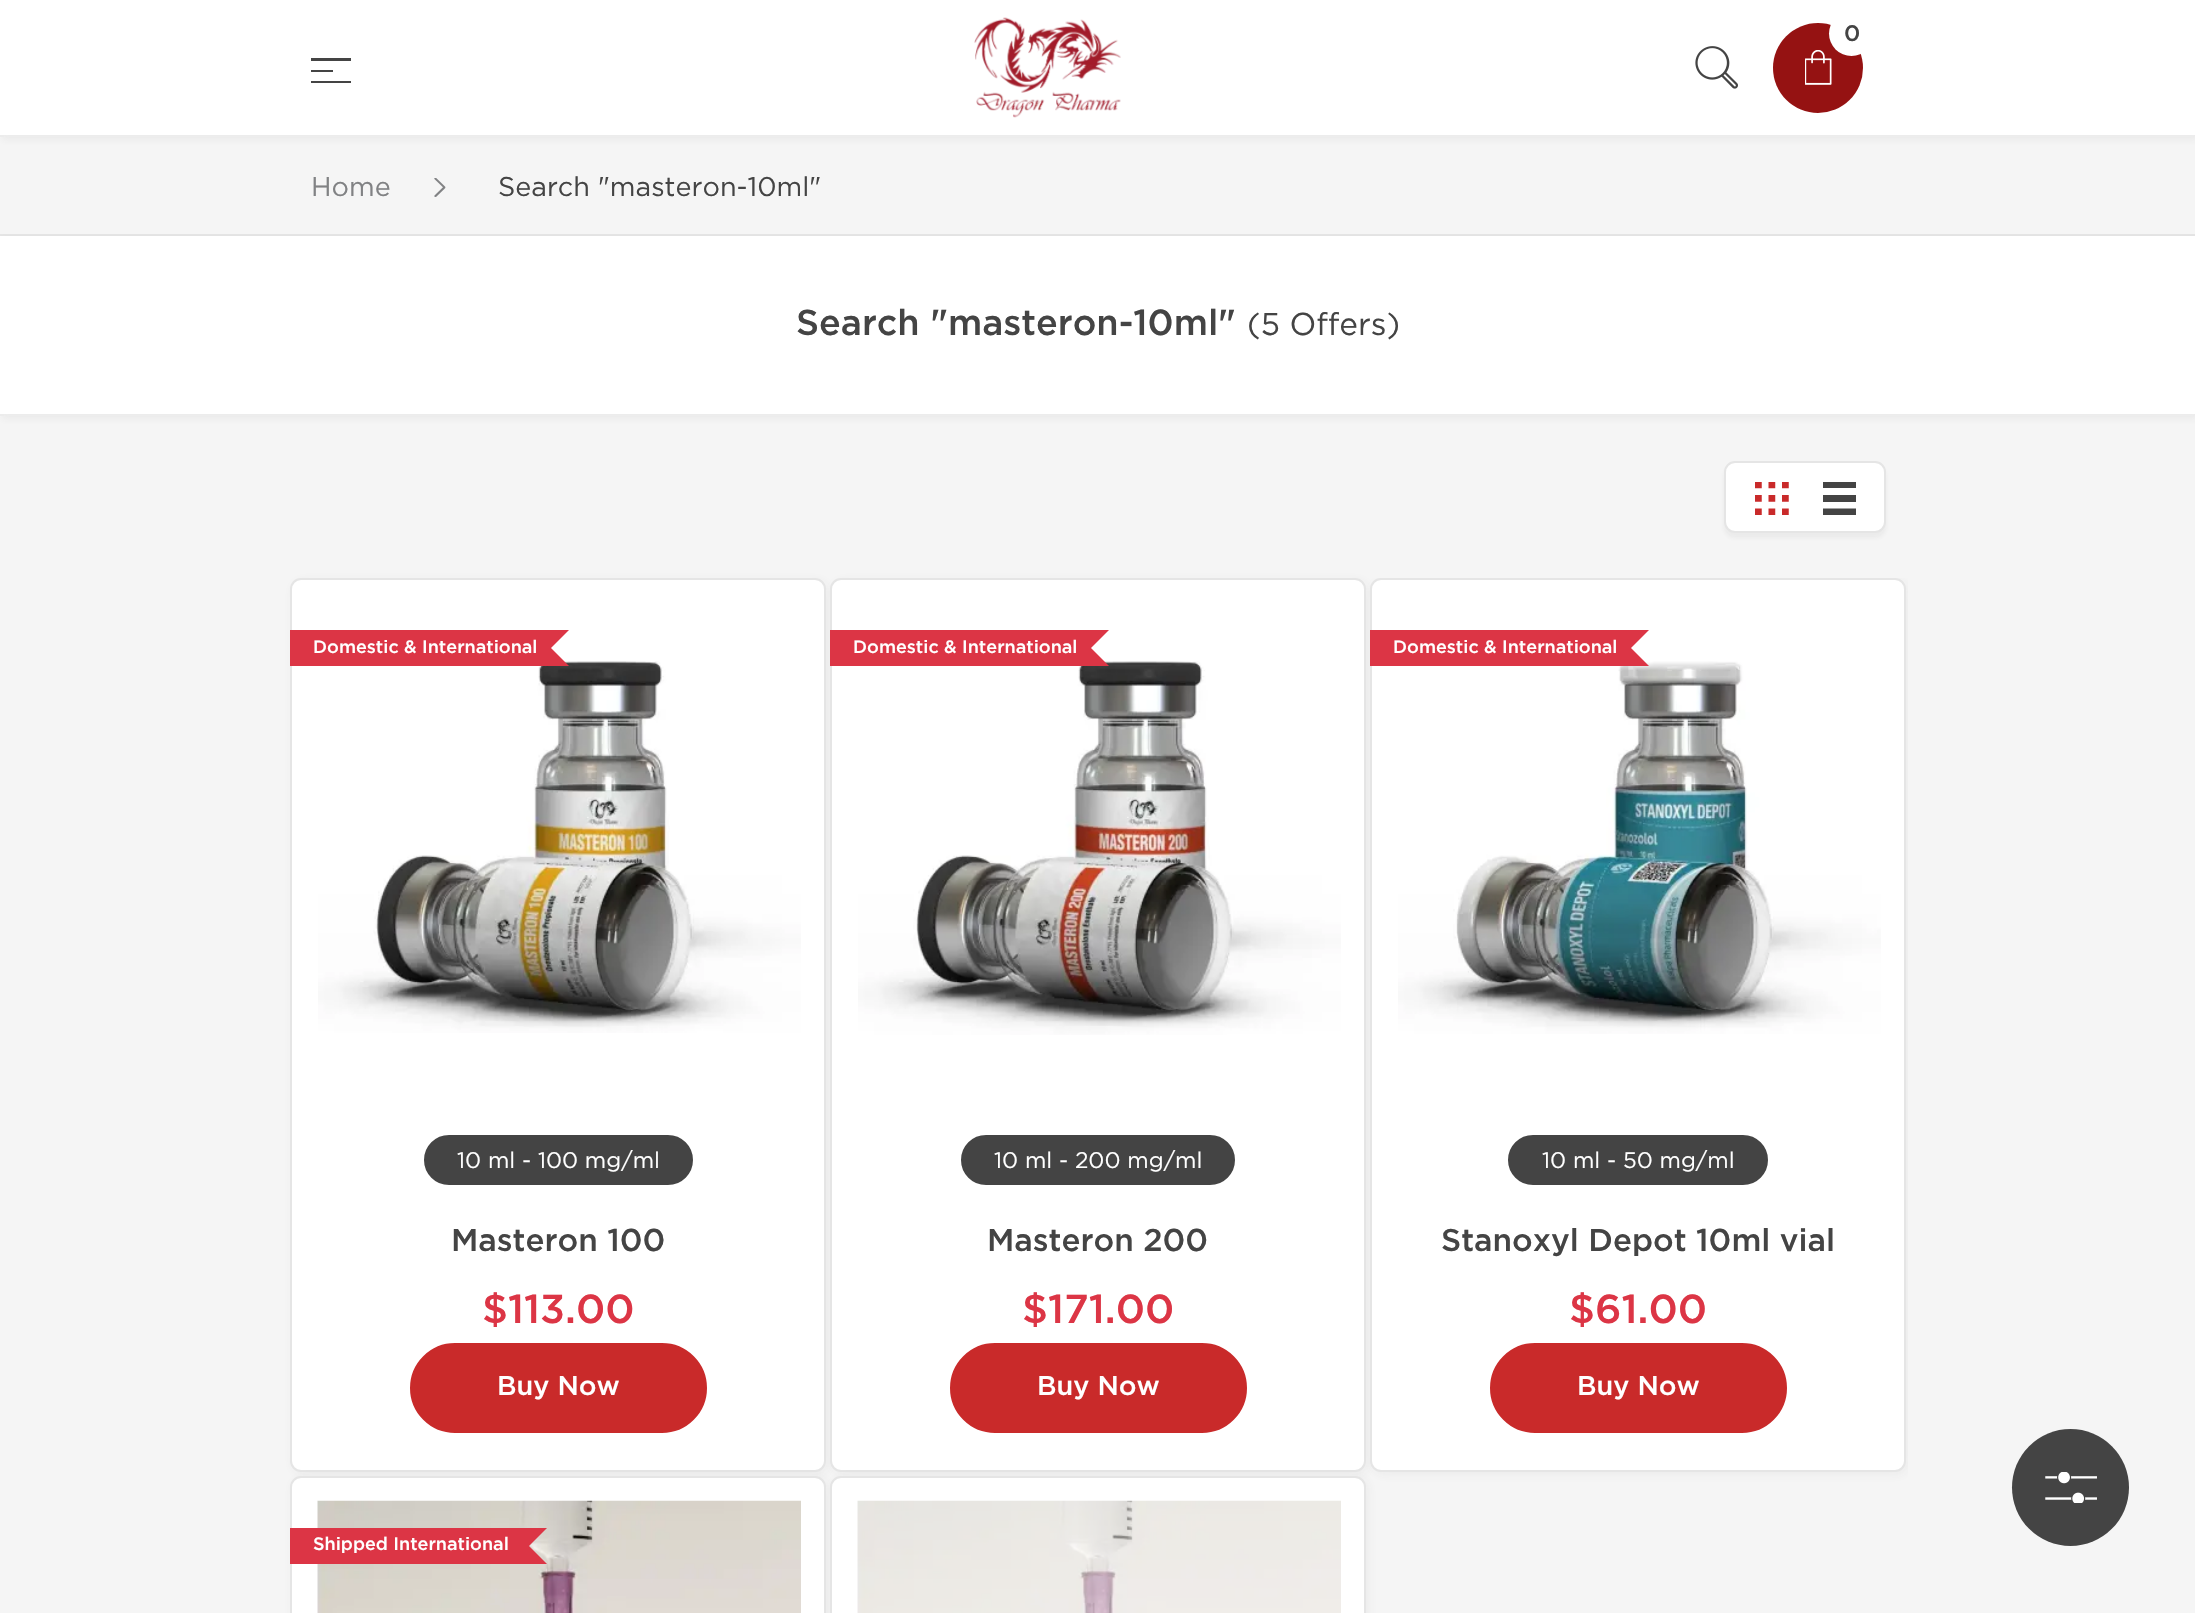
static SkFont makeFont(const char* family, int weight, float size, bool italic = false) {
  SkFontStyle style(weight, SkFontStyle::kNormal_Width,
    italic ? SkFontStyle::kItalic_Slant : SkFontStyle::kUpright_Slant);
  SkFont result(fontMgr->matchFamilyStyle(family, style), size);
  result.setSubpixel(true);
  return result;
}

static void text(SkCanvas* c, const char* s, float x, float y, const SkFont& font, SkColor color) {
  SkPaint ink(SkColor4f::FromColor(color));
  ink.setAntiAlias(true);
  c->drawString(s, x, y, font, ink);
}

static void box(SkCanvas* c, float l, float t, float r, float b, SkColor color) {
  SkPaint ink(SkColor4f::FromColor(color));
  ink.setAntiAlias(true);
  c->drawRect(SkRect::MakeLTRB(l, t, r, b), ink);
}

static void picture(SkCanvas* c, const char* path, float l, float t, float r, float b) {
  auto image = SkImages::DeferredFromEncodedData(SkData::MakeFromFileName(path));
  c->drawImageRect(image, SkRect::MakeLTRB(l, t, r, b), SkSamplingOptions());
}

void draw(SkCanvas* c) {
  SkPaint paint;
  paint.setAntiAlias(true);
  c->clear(0xfff5f5f5);
  paint.setColor(0x0f444444);
  paint.setMaskFilter(SkMaskFilter::MakeBlur(kNormal_SkBlurStyle, 3.5f));
  c->drawRect(SkRect::MakeLTRB(2, 2, 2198, 140), paint);
  paint.setMaskFilter(nullptr);
  box(c, 0, 0, 2195, 135, 0xffffffff);
  box(c, 0, 135, 4, 137, 0xffececec);
  picture(c, "img_01.png", 974, 17, 1121, 118);
  paint.setColor(0xff951212);
  c->drawCircle(1818, 68, 45, paint);
  picture(c, "img_02.png", 1805, 50, 1832, 85);
  paint.setColor(0xffffffff);
  c->drawCircle(1851.5f, 33.5f, 22.5f, paint);
  SkFont face1 = makeFont("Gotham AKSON", 500, 22.5f);
  text(c, "0", 1844, 41, face1, 0xff444444);
  picture(c, "img_03.png", 1695, 46, 1738, 89);
  c->save();
  c->clipRect(SkRect::MakeLTRB(311, 47, 356, 92));
  paint.setColor(0xff444444);
  c->drawPath(SkPathBuilder(SkPathFillType::kEvenOdd).moveTo(333, 70).lineTo(306, 70).lineTo(306, 72).lineTo(333, 72).close().moveTo(306, 83).lineTo(351, 83).lineTo(351, 81).lineTo(306, 81).close().moveTo(306, 58).lineTo(306, 61).lineTo(351, 61).lineTo(351, 58).close().detach(), paint);
  c->restore();
  box(c, 0, 234, 2195, 236, 0xffe5e5e5);
  SkFont face2 = makeFont("Gotham AKSON", 400, 27);
  text(c, "Home", 311, 196, face2, 0xff818284);
  picture(c, "img_04.png", 434, 178, 446, 197);
  text(c, "Search \"masteron-10ml\"", 498, 196, face2, 0xff444444);
  paint.setColor(0x0f444444);
  paint.setMaskFilter(SkMaskFilter::MakeBlur(kNormal_SkBlurStyle, 3.5f));
  c->drawRect(SkRect::MakeLTRB(2, 239, 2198, 419), paint);
  paint.setMaskFilter(nullptr);
  box(c, 0, 236, 2195, 414, 0xffffffff);
  box(c, 0, 414, 4, 416, 0xffececec);
  SkFont face3 = makeFont("Gotham AKSON", 500, 36);
  text(c, "Search \"masteron-10ml\"", 796, 335, face3, 0xff444444);
  SkFont face4 = makeFont("Gotham AKSON", 400, 31.5f);
  text(c, "(5 Offers)", 1247, 335, face4, 0xff444444);
  paint.setMaskFilter(SkMaskFilter::MakeBlur(kNormal_SkBlurStyle, 2));
  c->drawRoundRect(SkRect::MakeLTRB(1724, 466, 1886, 538), 11, 11, paint);
  paint.setMaskFilter(nullptr);
  paint.setColor(0xffffffff);
  c->drawRoundRect(SkRect::MakeLTRB(1725, 462, 1885, 532), 10, 10, paint);
  paint.setStyle(SkPaint::kStroke_Style);
  paint.setStrokeWidth(2);
  paint.setColor(0xffe5e5e5);
  c->drawRoundRect(SkRect::MakeLTRB(1725, 462, 1885, 532), 10, 10, paint);
  picture(c, "img_05.png", 1755, 482, 1789, 515);
  c->save();
  c->clipRect(SkRect::MakeLTRB(1823, 482, 1856, 515));
  paint.setStyle(SkPaint::kFill_Style);
  paint.setColor(0xff444444);
  c->drawPath(SkPathBuilder().moveTo(1822.5f, 481.5f).lineTo(1856, 481.5f).lineTo(1856, 488).lineTo(1822.5f, 488).close().moveTo(1822.5f, 495).lineTo(1856, 495).lineTo(1856, 502).lineTo(1822.5f, 502).close().moveTo(1822.5f, 508.5f).lineTo(1856, 508.5f).lineTo(1856, 515).lineTo(1822.5f, 515).close().detach(), paint);
  c->restore();
  paint.setColor(0x0f444444);
  paint.setMaskFilter(SkMaskFilter::MakeBlur(kNormal_SkBlurStyle, 5.5f));
  c->drawRoundRect(SkRect::MakeLTRB(293, 581, 828, 1474), 11, 11, paint);
  paint.setMaskFilter(nullptr);
  paint.setColor(0xffffffff);
  c->drawRoundRect(SkRect::MakeLTRB(291, 579, 825, 1471), 10, 10, paint);
  paint.setStyle(SkPaint::kStroke_Style);
  paint.setColor(0xffe5e5e5);
  c->drawRoundRect(SkRect::MakeLTRB(291, 579, 825, 1471), 10, 10, paint);
  picture(c, "img_06.png", 318, 661, 801, 1033);
  box(c, 290, 630, 515, 666, 0xffdc3545);
  paint.setStyle(SkPaint::kFill_Style);
  paint.setColor(0xffdc3545);
  c->drawPath(SkPathBuilder().moveTo(515, 630).lineTo(569, 630).lineTo(551, 648).lineTo(497, 648).close().detach(), paint);
  c->drawPath(SkPathBuilder().moveTo(497, 648).lineTo(551, 648).lineTo(569, 666).lineTo(515, 666).close().detach(), paint);
  SkFont face5 = makeFont("Gotham AKSON", 500, 18);
  text(c, "Domestic & International", 313, 653, face5, 0xffffffff);
  paint.setColor(0xff444444);
  c->drawRoundRect(SkRect::MakeLTRB(412.5f, 1123.5f, 704.5f, 1196.5f), 36.5f, 36.5f, paint);
  paint.setStyle(SkPaint::kStroke_Style);
  paint.setStrokeWidth(23);
  paint.setColor(0xffffffff);
  c->drawRoundRect(SkRect::MakeLTRB(412.5f, 1123.5f, 704.5f, 1196.5f), 36.5f, 36.5f, paint);
  SkFont face6 = makeFont("Gotham AKSON", 400, 22.5f);
  text(c, "10 ml - 100 mg/ml", 457, 1168, face6, 0xffffffff);
  SkFont face7 = makeFont("Gotham AKSON", 500, 31.5f);
  text(c, "Masteron 100", 451, 1251, face7, 0xff444444);
  SkFont face8 = makeFont("Gotham AKSON", 500, 40.5f);
  text(c, "$113.00", 482, 1323, face8, 0xffdc3545);
  paint.setStyle(SkPaint::kFill_Style);
  paint.setColor(0xffc92a2a);
  c->drawRoundRect(SkRect::MakeLTRB(412.5f, 1345.5f, 704.5f, 1430.5f), 42.5f, 42.5f, paint);
  paint.setStyle(SkPaint::kStroke_Style);
  paint.setStrokeWidth(5);
  c->drawRoundRect(SkRect::MakeLTRB(412.5f, 1345.5f, 704.5f, 1430.5f), 42.5f, 42.5f, paint);
  SkFont face9 = makeFont("Gotham AKSON", 500, 27);
  text(c, "Buy Now", 497, 1395, face9, 0xffffffff);
  paint.setStyle(SkPaint::kFill_Style);
  paint.setColor(0x0f444444);
  paint.setMaskFilter(SkMaskFilter::MakeBlur(kNormal_SkBlurStyle, 5.5f));
  c->drawRoundRect(SkRect::MakeLTRB(833, 581, 1368, 1474), 11, 11, paint);
  paint.setMaskFilter(nullptr);
  paint.setColor(0xffffffff);
  c->drawRoundRect(SkRect::MakeLTRB(831, 579, 1365, 1471), 10, 10, paint);
  paint.setStyle(SkPaint::kStroke_Style);
  paint.setStrokeWidth(2);
  paint.setColor(0xffe5e5e5);
  c->drawRoundRect(SkRect::MakeLTRB(831, 579, 1365, 1471), 10, 10, paint);
  picture(c, "img_07.png", 858, 661, 1341, 1035);
  box(c, 830, 630, 1055, 666, 0xffdc3545);
  paint.setStyle(SkPaint::kFill_Style);
  paint.setColor(0xffdc3545);
  c->drawPath(SkPathBuilder().moveTo(1055, 630).lineTo(1109, 630).lineTo(1091, 648).lineTo(1037, 648).close().detach(), paint);
  c->drawPath(SkPathBuilder().moveTo(1037, 648).lineTo(1091, 648).lineTo(1109, 666).lineTo(1055, 666).close().detach(), paint);
  text(c, "Domestic & International", 853, 653, face5, 0xffffffff);
  paint.setColor(0xff444444);
  c->drawRoundRect(SkRect::MakeLTRB(949.5f, 1123.5f, 1246.5f, 1196.5f), 36.5f, 36.5f, paint);
  paint.setStyle(SkPaint::kStroke_Style);
  paint.setStrokeWidth(23);
  paint.setColor(0xffffffff);
  c->drawRoundRect(SkRect::MakeLTRB(949.5f, 1123.5f, 1246.5f, 1196.5f), 36.5f, 36.5f, paint);
  text(c, "10 ml - 200 mg/ml", 994, 1168, face6, 0xffffffff);
  text(c, "Masteron 200", 987, 1251, face7, 0xff444444);
  text(c, "$171.00", 1022, 1323, face8, 0xffdc3545);
  paint.setStyle(SkPaint::kFill_Style);
  paint.setColor(0xffc92a2a);
  c->drawRoundRect(SkRect::MakeLTRB(952.5f, 1345.5f, 1244.5f, 1430.5f), 42.5f, 42.5f, paint);
  paint.setStyle(SkPaint::kStroke_Style);
  paint.setStrokeWidth(5);
  c->drawRoundRect(SkRect::MakeLTRB(952.5f, 1345.5f, 1244.5f, 1430.5f), 42.5f, 42.5f, paint);
  text(c, "Buy Now", 1037, 1395, face9, 0xffffffff);
  c->save();
  c->clipRect(SkRect::MakeLTRB(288, 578, 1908, 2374));
  paint.setStyle(SkPaint::kFill_Style);
  paint.setColor(0x0f444444);
  paint.setMaskFilter(SkMaskFilter::MakeBlur(kNormal_SkBlurStyle, 5.5f));
  c->drawRoundRect(SkRect::MakeLTRB(1373, 581, 1908, 1474), 11, 11, paint);
  paint.setMaskFilter(nullptr);
  c->restore();
  paint.setColor(0xffffffff);
  c->drawRoundRect(SkRect::MakeLTRB(1371, 579, 1905, 1471), 10, 10, paint);
  paint.setStyle(SkPaint::kStroke_Style);
  paint.setStrokeWidth(2);
  paint.setColor(0xffe5e5e5);
  c->drawRoundRect(SkRect::MakeLTRB(1371, 579, 1905, 1471), 10, 10, paint);
  picture(c, "img_08.png", 1398, 661, 1881, 1034);
  box(c, 1370, 630, 1595, 666, 0xffdc3545);
  paint.setStyle(SkPaint::kFill_Style);
  paint.setColor(0xffdc3545);
  c->drawPath(SkPathBuilder().moveTo(1595, 630).lineTo(1649, 630).lineTo(1631, 648).lineTo(1577, 648).close().detach(), paint);
  c->drawPath(SkPathBuilder().moveTo(1577, 648).lineTo(1631, 648).lineTo(1649, 666).lineTo(1595, 666).close().detach(), paint);
  text(c, "Domestic & International", 1393, 653, face5, 0xffffffff);
  paint.setColor(0xff444444);
  c->drawRoundRect(SkRect::MakeLTRB(1496.5f, 1123.5f, 1779.5f, 1196.5f), 36.5f, 36.5f, paint);
  paint.setStyle(SkPaint::kStroke_Style);
  paint.setStrokeWidth(23);
  paint.setColor(0xffffffff);
  c->drawRoundRect(SkRect::MakeLTRB(1496.5f, 1123.5f, 1779.5f, 1196.5f), 36.5f, 36.5f, paint);
  text(c, "10 ml - 50 mg/ml", 1542, 1168, face6, 0xffffffff);
  text(c, "Stanoxyl Depot 10ml vial", 1441, 1251, face7, 0xff444444);
  text(c, "$61.00", 1569, 1323, face8, 0xffdc3545);
  paint.setStyle(SkPaint::kFill_Style);
  paint.setColor(0xffc92a2a);
  c->drawRoundRect(SkRect::MakeLTRB(1492.5f, 1345.5f, 1784.5f, 1430.5f), 42.5f, 42.5f, paint);
  paint.setStyle(SkPaint::kStroke_Style);
  paint.setStrokeWidth(5);
  c->drawRoundRect(SkRect::MakeLTRB(1492.5f, 1345.5f, 1784.5f, 1430.5f), 42.5f, 42.5f, paint);
  text(c, "Buy Now", 1577, 1395, face9, 0xffffffff);
  paint.setStyle(SkPaint::kFill_Style);
  paint.setColor(0x0f444444);
  paint.setMaskFilter(SkMaskFilter::MakeBlur(kNormal_SkBlurStyle, 5.5f));
  c->drawRoundRect(SkRect::MakeLTRB(293, 1478, 828, 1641), 11, 11, paint);
  paint.setMaskFilter(nullptr);
  paint.setColor(0xffffffff);
  c->drawRoundRect(SkRect::MakeLTRB(291, 1477, 825, 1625), 10, 10, paint);
  paint.setStyle(SkPaint::kStroke_Style);
  paint.setStrokeWidth(2);
  paint.setColor(0xffe5e5e5);
  c->drawRoundRect(SkRect::MakeLTRB(291, 1477, 825, 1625), 10, 10, paint);
  picture(c, "img_09.png", 317, 1500, 801, 1613);
  box(c, 290, 1528, 493, 1564, 0xffdc3545);
  paint.setStyle(SkPaint::kFill_Style);
  paint.setColor(0xffdc3545);
  c->drawPath(SkPathBuilder().moveTo(493, 1528).lineTo(547, 1528).lineTo(529, 1546).lineTo(475, 1546).close().detach(), paint);
  c->drawPath(SkPathBuilder().moveTo(475, 1546).lineTo(529, 1546).lineTo(547, 1564).lineTo(493, 1564).close().detach(), paint);
  text(c, "Shipped International", 313, 1550, face5, 0xffffffff);
  paint.setColor(0x0f444444);
  paint.setMaskFilter(SkMaskFilter::MakeBlur(kNormal_SkBlurStyle, 5.5f));
  c->drawRoundRect(SkRect::MakeLTRB(833, 1478, 1368, 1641), 11, 11, paint);
  paint.setMaskFilter(nullptr);
  paint.setColor(0xffffffff);
  c->drawRoundRect(SkRect::MakeLTRB(831, 1477, 1365, 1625), 10, 10, paint);
  paint.setStyle(SkPaint::kStroke_Style);
  paint.setColor(0xffe5e5e5);
  c->drawRoundRect(SkRect::MakeLTRB(831, 1477, 1365, 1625), 10, 10, paint);
  picture(c, "img_10.png", 857, 1500, 1341, 1613);
  paint.setStyle(SkPaint::kFill_Style);
  paint.setColor(0xff444444);
  c->drawCircle(2070.5f, 1487.5f, 58.5f, paint);
  picture(c, "img_11.png", 2045, 1472, 2097, 1503);
}
